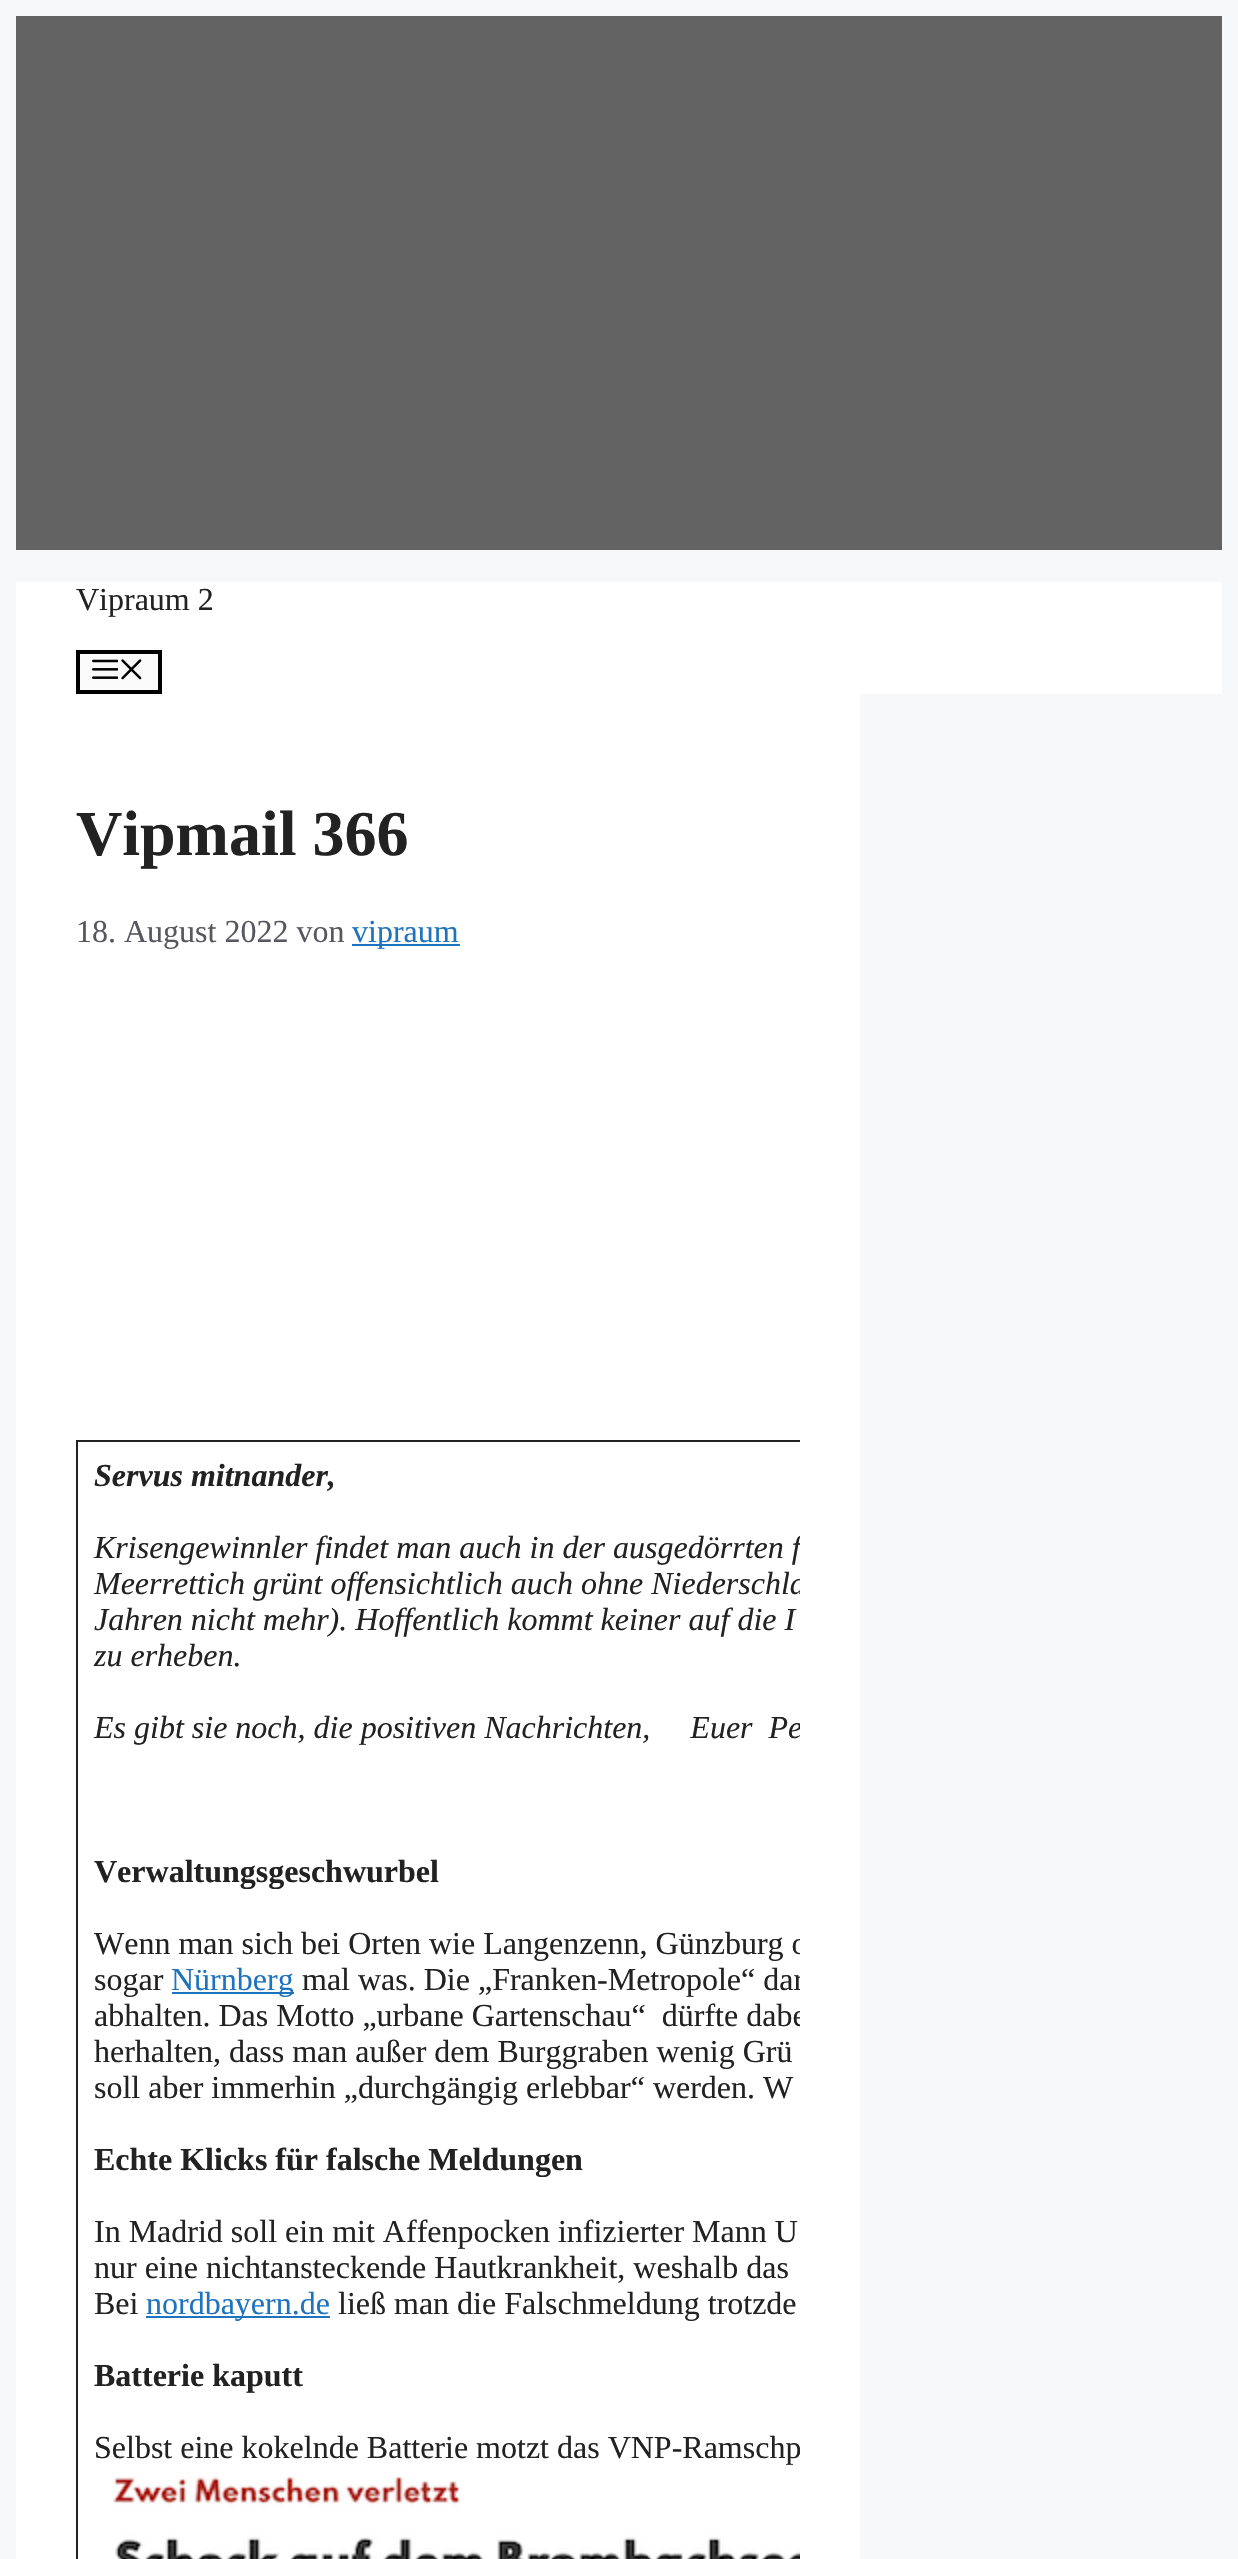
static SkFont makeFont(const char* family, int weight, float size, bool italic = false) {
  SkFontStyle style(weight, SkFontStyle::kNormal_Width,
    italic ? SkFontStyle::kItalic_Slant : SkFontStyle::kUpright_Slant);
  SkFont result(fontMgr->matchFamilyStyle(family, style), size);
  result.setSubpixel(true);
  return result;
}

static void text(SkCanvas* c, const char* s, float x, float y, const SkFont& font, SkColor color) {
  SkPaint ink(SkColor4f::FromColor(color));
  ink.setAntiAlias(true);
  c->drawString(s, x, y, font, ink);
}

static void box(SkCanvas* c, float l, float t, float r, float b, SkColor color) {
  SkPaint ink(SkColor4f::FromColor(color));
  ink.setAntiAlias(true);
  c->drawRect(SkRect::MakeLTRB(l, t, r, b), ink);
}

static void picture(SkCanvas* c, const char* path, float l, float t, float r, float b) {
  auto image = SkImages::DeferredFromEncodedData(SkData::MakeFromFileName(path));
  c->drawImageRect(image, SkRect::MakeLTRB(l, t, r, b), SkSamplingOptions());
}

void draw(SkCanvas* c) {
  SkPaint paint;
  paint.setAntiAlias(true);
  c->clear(0xfff7f8f9);
  box(c, 16, 16, 1222, 550, 0xff636363);
  box(c, 16, 582, 1222, 694, 0xffffffff);
  SkFont face1 = makeFont("Liberation Serif", 400, 32);
  text(c, "Vipraum 2", 76, 610, face1, 0xff222222);
  paint.setColor(0xfffafafa);
  c->drawRect(SkRect::MakeLTRB(78, 652, 160, 692), paint);
  paint.setStyle(SkPaint::kStroke_Style);
  paint.setStrokeWidth(4);
  paint.setColor(0xff000000);
  c->drawRect(SkRect::MakeLTRB(78, 652, 160, 692), paint);
  picture(c, "img_01.png", 92, 659, 118, 679);
  picture(c, "img_02.png", 121, 659, 142, 680);
  box(c, 16, 694, 860, 2559, 0xffffffff);
  SkFont face2 = makeFont("Liberation Serif", 700, 64);
  text(c, "Vipmail 366", 76, 855, face2, 0xff222222);
  text(c, "18. August 2022 von", 76, 942, face1, 0xff575760);
  box(c, 352, 944, 460, 946, 0xff1e73be);
  text(c, "vipraum", 352, 942, face1, 0xff1e73be);
  box(c, 76, 1440, 800, 1442, 0xff222222);
  box(c, 76, 1440, 78, 2559, 0xff222222);
  SkFont face3 = makeFont("Liberation Serif", 700, 32, true);
  text(c, "Servus mitnander,", 94, 1486, face3, 0xff222222);
  c->save();
  c->clipRect(SkRect::MakeLTRB(76, 1440, 800, 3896));
  SkFont face4 = makeFont("Liberation Serif", 400, 32, true);
  text(c, "Krisengewinnler findet man auch in der ausgedörrten f", 94, 1558, face4, 0xff222222);
  text(c, "Meerrettich grünt offensichtlich auch ohne Niederschla", 94, 1594, face4, 0xff222222);
  c->restore();
  text(c, "Jahren nicht mehr). Hoffentlich kommt keiner auf die I", 94, 1630, face4, 0xff222222);
  text(c, "zu erheben.", 94, 1666, face4, 0xff222222);
  c->save();
  c->clipRect(SkRect::MakeLTRB(76, 1440, 800, 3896));
  text(c, "Es gibt sie noch, die positiven Nachrichten,     Euer  Pe", 94, 1738, face4, 0xff222222);
  c->restore();
  SkFont face5 = makeFont("Liberation Serif", 700, 32);
  text(c, "Verwaltungsgeschwurbel", 94, 1882, face5, 0xff222222);
  c->save();
  c->clipRect(SkRect::MakeLTRB(76, 1440, 800, 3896));
  text(c, "Wenn man sich bei Orten wie Langenzenn, Günzburg o", 94, 1954, face1, 0xff222222);
  c->restore();
  text(c, "sogar", 94, 1990, face1, 0xff222222);
  box(c, 172, 1992, 294, 1994, 0xff1e73be);
  text(c, "Nürnberg", 171, 1990, face1, 0xff1e73be);
  c->save();
  c->clipRect(SkRect::MakeLTRB(76, 1440, 800, 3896));
  text(c, "mal was. Die „Franken-Metropole“ dar", 302, 1990, face1, 0xff222222);
  text(c, "abhalten. Das Motto „urbane Gartenschau“  dürfte dabe", 94, 2026, face1, 0xff222222);
  c->restore();
  text(c, "herhalten, dass man außer dem Burggraben wenig Grü", 94, 2062, face1, 0xff222222);
  text(c, "soll aber immerhin „durchgängig erlebbar“ werden. W", 94, 2098, face1, 0xff222222);
  text(c, "Echte Klicks für falsche Meldungen", 94, 2170, face5, 0xff222222);
  text(c, "In Madrid soll ein mit Affenpocken infizierter Mann U", 94, 2242, face1, 0xff222222);
  text(c, "nur eine nichtansteckende Hautkrankheit, weshalb das", 94, 2278, face1, 0xff222222);
  text(c, "Bei", 94, 2314, face1, 0xff222222);
  box(c, 146, 2316, 330, 2318, 0xff1e73be);
  text(c, "nordbayern.de", 146, 2314, face1, 0xff1e73be);
  text(c, "ließ man die Falschmeldung trotzde", 338, 2314, face1, 0xff222222);
  text(c, "Batterie kaputt", 94, 2386, face5, 0xff222222);
  c->save();
  c->clipRect(SkRect::MakeLTRB(76, 1440, 800, 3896));
  text(c, "Selbst eine kokelnde Batterie motzt das VNP-Ramschp", 94, 2458, face1, 0xff222222);
  c->restore();
  picture(c, "img_03.png", 113, 2476, 800, 2559);
}
